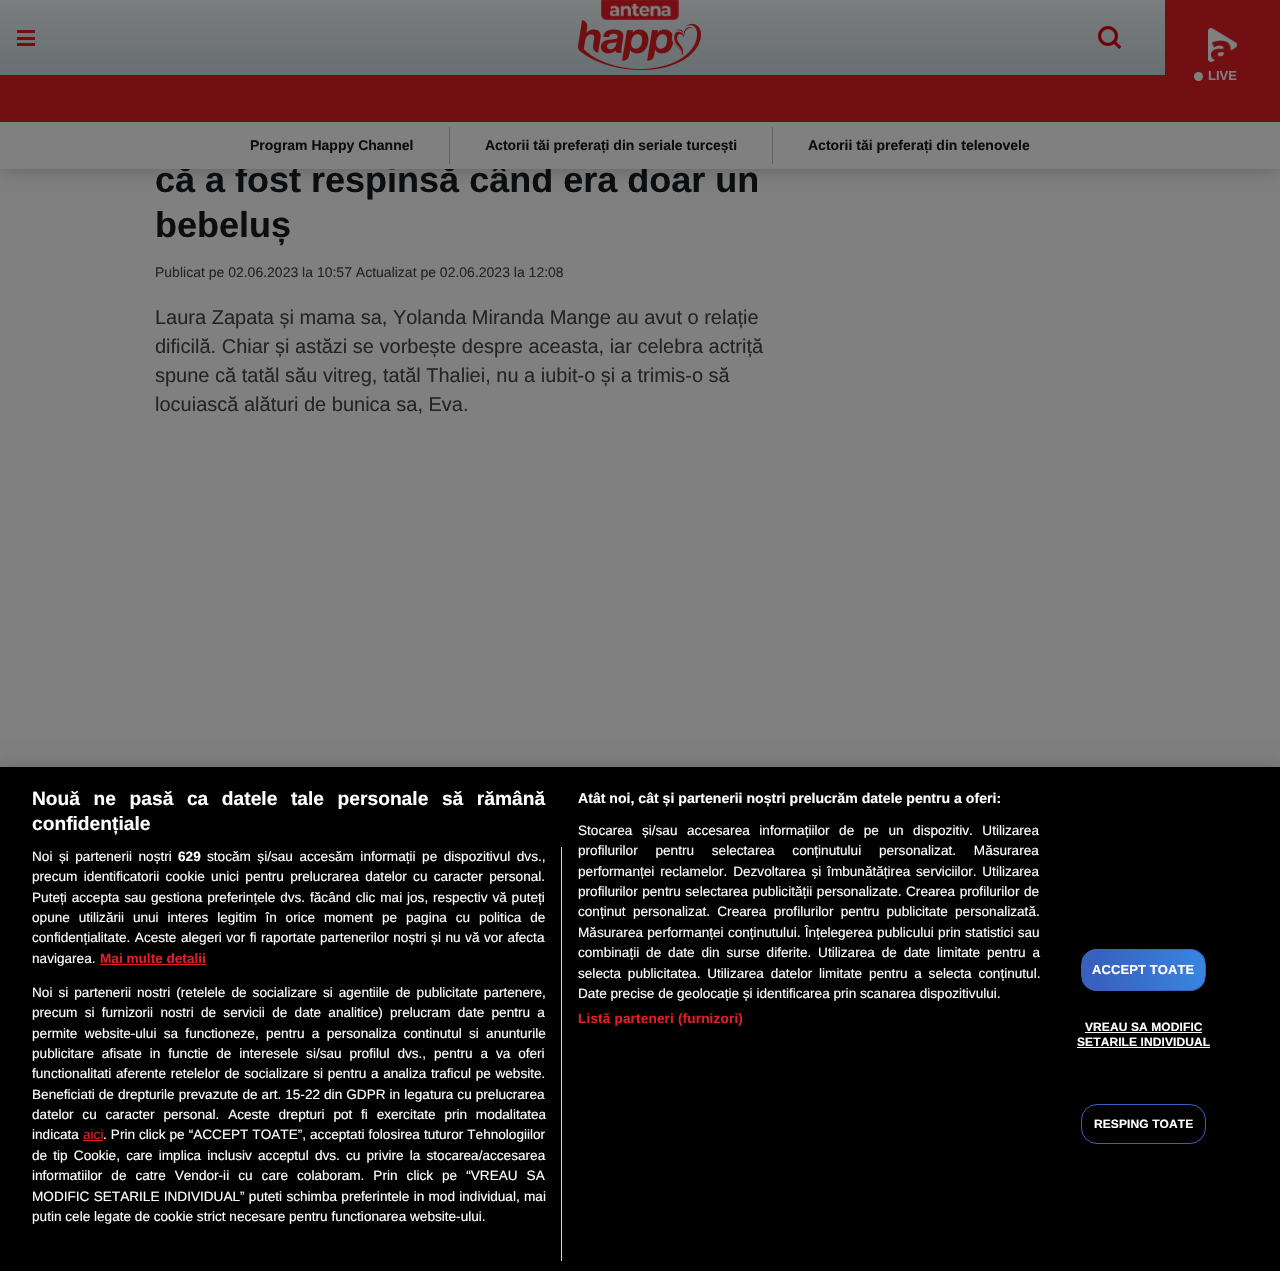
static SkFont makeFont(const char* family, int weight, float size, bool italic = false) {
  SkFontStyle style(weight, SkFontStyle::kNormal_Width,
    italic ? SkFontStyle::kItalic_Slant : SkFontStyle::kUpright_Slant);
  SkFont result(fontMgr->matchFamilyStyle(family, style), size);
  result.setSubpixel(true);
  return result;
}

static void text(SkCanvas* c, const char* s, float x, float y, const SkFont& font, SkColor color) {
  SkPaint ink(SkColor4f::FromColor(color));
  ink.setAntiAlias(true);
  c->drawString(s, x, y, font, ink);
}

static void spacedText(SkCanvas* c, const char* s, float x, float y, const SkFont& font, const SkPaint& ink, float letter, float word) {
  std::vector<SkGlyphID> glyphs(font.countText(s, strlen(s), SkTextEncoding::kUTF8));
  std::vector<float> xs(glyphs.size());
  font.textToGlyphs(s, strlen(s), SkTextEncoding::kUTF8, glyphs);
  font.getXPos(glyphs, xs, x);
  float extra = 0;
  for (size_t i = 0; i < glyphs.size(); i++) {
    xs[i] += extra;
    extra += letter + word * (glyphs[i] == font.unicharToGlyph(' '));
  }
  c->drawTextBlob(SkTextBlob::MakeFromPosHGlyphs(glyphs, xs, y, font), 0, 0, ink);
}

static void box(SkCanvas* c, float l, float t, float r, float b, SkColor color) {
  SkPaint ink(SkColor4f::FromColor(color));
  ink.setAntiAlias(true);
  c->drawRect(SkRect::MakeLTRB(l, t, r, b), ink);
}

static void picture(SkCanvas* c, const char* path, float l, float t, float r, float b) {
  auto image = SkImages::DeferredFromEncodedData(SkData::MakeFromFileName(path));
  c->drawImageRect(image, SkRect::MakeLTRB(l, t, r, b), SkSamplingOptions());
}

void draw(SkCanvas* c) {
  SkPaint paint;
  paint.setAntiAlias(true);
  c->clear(0xff808080);
  {
    const SkColor colors[] = {0xff686f72, 0xff7b7d7e};
    const float stops[] = {0, 1};
    const SkPoint ends[] = {{640, 75}, {640, 0}};
    paint.setShader(SkGradientShader::MakeLinear(ends, colors, stops, 2, SkTileMode::kClamp));
    paint.setAlpha(255);
  }
  c->drawRect(SkRect::MakeLTRB(0, 0, 1165, 75), paint);
  picture(c, "img_01.png", 601, 0, 679, 20);
  picture(c, "img_02.png", 578, 20, 701, 70);
  box(c, 17, 30, 35, 33, 0xff710f13);
  box(c, 17, 37, 35, 40, 0xff710f13);
  box(c, 17, 43, 35, 46, 0xff710f13);
  picture(c, "img_03.png", 1098, 26, 1122, 49);
  paint.setShader(nullptr);
  paint.setColor(0x40000000);
  paint.setMaskFilter(SkMaskFilter::MakeBlur(kNormal_SkBlurStyle, 10));
  c->drawRect(SkRect::MakeLTRB(0, 122, 1280, 169), paint);
  paint.setMaskFilter(nullptr);
  box(c, 0, 75, 1280, 122, 0xff710f13);
  box(c, 1165, 0, 1280, 75, 0xff710f13);
  picture(c, "img_04.png", 1208, 28, 1237, 62);
  paint.setColor(0xff808080);
  c->drawCircle(1198.5f, 76.5f, 4.5f, paint);
  SkFont face1 = makeFont("Liberation Sans", 700, 13);
  text(c, "LIVE", 1208, 80, face1, 0xff808080);
  box(c, 5, 127, 1275, 164, 0xff808080);
  SkFont face2 = makeFont("Liberation Sans", 700, 36);
  text(c, "că a fost respinsă când era doar un", 155, 192, face2, 0xff0c0d0e);
  box(c, 449, 122, 450, 169, 0xff626165);
  box(c, 772, 122, 773, 169, 0xff626165);
  paint.setStyle(SkPaint::kStroke_Style);
  paint.setStrokeWidth(5);
  c->drawRect(SkRect::MakeLTRB(2.5f, 124.5f, 1277.5f, 166.5f), paint);
  SkFont face3 = makeFont("Liberation Sans", 700, 14);
  text(c, "Program Happy Channel", 250, 150, face3, 0xff0c0d0e);
  text(c, "Actorii tăi preferați din seriale turcești", 485, 150, face3, 0xff0c0d0e);
  text(c, "Actorii tăi preferați din telenovele", 808, 150, face3, 0xff0c0d0e);
  text(c, "bebeluș", 155, 237, face2, 0xff0c0d0e);
  SkFont face4 = makeFont("Liberation Sans", 400, 14);
  text(c, "Publicat pe 02.06.2023 la 10:57 Actualizat pe 02.06.2023 la 12:08", 155, 277, face4, 0xff232425);
  SkFont face5 = makeFont("Liberation Sans", 400, 20);
  text(c, "Laura Zapata și mama sa, Yolanda Miranda Mange au avut o relație", 155, 324, face5, 0xff232425);
  text(c, "dificilă. Chiar și astăzi se vorbește despre aceasta, iar celebra actriță", 155, 353, face5, 0xff232425);
  text(c, "spune că tatăl său vitreg, tatăl Thaliei, nu a iubit-o și a trimis-o să", 155, 382, face5, 0xff232425);
  text(c, "locuiască alături de bunica sa, Eva.", 155, 411, face5, 0xff232425);
  paint.setStyle(SkPaint::kFill_Style);
  paint.setColor(0x33000000);
  paint.setMaskFilter(SkMaskFilter::MakeBlur(kNormal_SkBlurStyle, 9));
  c->drawRect(SkRect::MakeLTRB(0, 767, 1280, 1271), paint);
  paint.setMaskFilter(nullptr);
  box(c, 0, 767, 1280, 1271, 0xff000000);
  SkFont face6 = makeFont("Liberation Sans", 700, 19.2f);
  paint.setColor(0xffffffff);
  spacedText(c, "Nouă ne pasă ca datele tale personale să rămână", 32, 805, face6, paint, 0, 8.25f);
  text(c, "confidențiale", 32, 830, face6, 0xffffffff);
  SkFont face7 = makeFont("Liberation Sans", 700, 14.1f);
  text(c, "Atât noi, cât și partenerii noștri prelucrăm datele pentru a oferi:", 578, 803, face7, 0xffffffff);
  SkFont face8 = makeFont("Liberation Sans", 400, 13.6f);
  spacedText(c, "Stocarea și/sau accesarea informațiilor de pe un dispozitiv. Utilizarea", 578, 835, face8, paint, 0, 5.75f);
  spacedText(c, "profilurilor pentru selectarea conținutului personalizat. Măsurarea", 578, 855, face8, paint, 0, 14);
  spacedText(c, "performanței reclamelor. Dezvoltarea și îmbunătățirea serviciilor. Utilizarea", 578, 876, face8, paint, 0, 2);
  spacedText(c, "profilurilor pentru selectarea publicității personalizate. Crearea profilurilor de", 578, 896, face8, paint, 0, 0.75f);
  spacedText(c, "conținut personalizat. Crearea profilurilor pentru publicitate personalizată.", 578, 916, face8, paint, 0, 3.5f);
  spacedText(c, "Măsurarea performanței conținutului. Înțelegerea publicului prin statistici sau", 578, 937, face8, paint, 0, 0.5f);
  spacedText(c, "combinații de date din surse diferite. Utilizarea de date limitate pentru a", 578, 957, face8, paint, 0, 3.1f);
  spacedText(c, "selecta publicitatea. Utilizarea datelor limitate pentru a selecta conținutul.", 578, 978, face8, paint, 0, 3);
  text(c, "Date precise de geolocație și identificarea prin scanarea dispozitivului.", 578, 998, face8, 0xffffffff);
  SkFont face9 = makeFont("Liberation Sans", 700, 13.6f);
  paint.setColor(0xffe11e25);
  spacedText(c, "Listă parteneri (furnizori)", 578, 1023, face9, paint, 0.15f, 0);
  box(c, 561, 847, 562, 1261, 0xffd8d8d8);
  paint.setColor(0xffffffff);
  spacedText(c, "Noi și partenerii noștri", 32, 861, face8, paint, 0, 2.75f);
  text(c, "629", 178, 861, face9, 0xffffffff);
  spacedText(c, "stocăm și/sau accesăm informații pe dispozitivul dvs.,", 207, 861, face8, paint, 0, 2.75f);
  spacedText(c, "precum identificatorii cookie unici pentru prelucrarea datelor cu caracter personal.", 32, 881, face8, paint, 0, 2.5f);
  spacedText(c, "Puteți accepta sau gestiona preferințele dvs. făcând clic mai jos, respectiv vă puteți", 32, 902, face8, paint, 0, 1.1f);
  spacedText(c, "opune utilizării unui interes legitim în orice moment pe pagina cu politica de", 32, 922, face8, paint, 0, 5.1f);
  spacedText(c, "confidențialitate. Aceste alegeri vor fi raportate partenerilor noștri și nu vă vor afecta", 32, 942, face8, paint, 0, 0.75f);
  text(c, "navigarea.", 32, 963, face8, 0xffffffff);
  text(c, "Mai multe detalii", 100, 963, face9, 0xffe11e25);
  box(c, 100, 964, 206, 965, 0xffe11e25);
  spacedText(c, "Noi si partenerii nostri (retelele de socializare si agentiile de publicitate partenere,", 32, 997, face8, paint, 0, 2.25f);
  spacedText(c, "precum si furnizorii nostri de servicii de date analitice) prelucram date pentru a", 32, 1017, face8, paint, 0, 3.5f);
  spacedText(c, "permite website-ului sa functioneze, pentru a personaliza continutul si anunturile", 32, 1038, face8, paint, 0, 3.5f);
  spacedText(c, "publicitare afisate in functie de interesele si/sau profilul dvs., pentru a va oferi", 32, 1058, face8, paint, 0, 4.1f);
  spacedText(c, "functionalitati aferente retelelor de socializare si pentru a analiza traficul pe website.", 32, 1078, face8, paint, 0, 0.9f);
  spacedText(c, "Beneficiati de drepturile prevazute de art. 15-22 din GDPR in legatura cu prelucrarea", 32, 1099, face8, paint, 0, 0.25f);
  spacedText(c, "datelor cu caracter personal. Aceste drepturi pot fi exercitate prin modalitatea", 32, 1119, face8, paint, 0, 5);
  text(c, "indicata", 32, 1139, face8, 0xffffffff);
  text(c, "aici", 83, 1139, face8, 0xffe11e25);
  box(c, 83, 1140, 103, 1141, 0xffe11e25);
  spacedText(c, ". Prin click pe “ACCEPT TOATE”, acceptati folosirea tuturor Tehnologiilor", 103, 1139, face8, paint, 0, 0.25f);
  spacedText(c, "de tip Cookie, care implica inclusiv acceptul dvs. cu privire la stocarea/accesarea", 32, 1160, face8, paint, 0, 2.4f);
  spacedText(c, "informatiilor de catre Vendor-ii cu care colaboram. Prin click pe “VREAU SA", 32, 1180, face8, paint, 0, 5.25f);
  spacedText(c, "MODIFIC SETARILE INDIVIDUAL” puteti schimba preferintele in mod individual, mai", 32, 1201, face8, paint, 0, 0.5f);
  text(c, "putin cele legate de cookie strict necesare pentru functionarea website-ului.", 32, 1221, face8, 0xffffffff);
  c->save();
  c->clipPath(SkPathBuilder().moveTo(1097, 949).lineTo(1190, 949).cubicTo(1199, 949, 1206, 956, 1206, 965).lineTo(1206, 975).cubicTo(1206, 984, 1199, 991, 1190, 991).lineTo(1097, 991).cubicTo(1088, 991, 1081, 984, 1081, 975).lineTo(1081, 965).cubicTo(1081, 956, 1088, 949, 1097, 949).close().detach(), true);
  {
    const SkColor colors[] = {0xff3860be, 0xff3985e0};
    const float stops[] = {0.1f, 1};
    const SkPoint ends[] = {{1082, 970}, {1205, 970}};
    paint.setShader(SkGradientShader::MakeLinear(ends, colors, stops, 2, SkTileMode::kClamp));
    paint.setAlpha(255);
  }
  c->drawRect(SkRect::MakeLTRB(1082, 949, 1205, 991), paint);
  c->restore();
  paint.setStyle(SkPaint::kStroke_Style);
  paint.setStrokeWidth(1);
  paint.setShader(nullptr);
  paint.setColor(0xff3860be);
  c->drawRoundRect(SkRect::MakeLTRB(1081.5f, 949.5f, 1205.5f, 990.5f), 15.5f, 15.5f, paint);
  paint.setStyle(SkPaint::kFill_Style);
  paint.setColor(0xffffffff);
  spacedText(c, "ACCEPT TOATE", 1092, 974, face1, paint, 0.1f, 0);
  SkFont face10 = makeFont("Liberation Sans", 700, 12);
  spacedText(c, "VREAU SA MODIFIC", 1085, 1031, face10, paint, 0.1f, 0);
  box(c, 1085, 1032, 1202, 1033, 0xffffffff);
  spacedText(c, "SETARILE INDIVIDUAL", 1077, 1046, face10, paint, 0.1f, 0);
  box(c, 1077, 1047, 1210, 1048, 0xffffffff);
  paint.setStyle(SkPaint::kStroke_Style);
  paint.setColor(0xff3860be);
  c->drawRoundRect(SkRect::MakeLTRB(1081.5f, 1104.5f, 1205.5f, 1143.5f), 15.5f, 15.5f, paint);
  paint.setStyle(SkPaint::kFill_Style);
  paint.setColor(0xffffffff);
  spacedText(c, "RESPING TOATE", 1094, 1128, face10, paint, 0.1f, 0);
}
